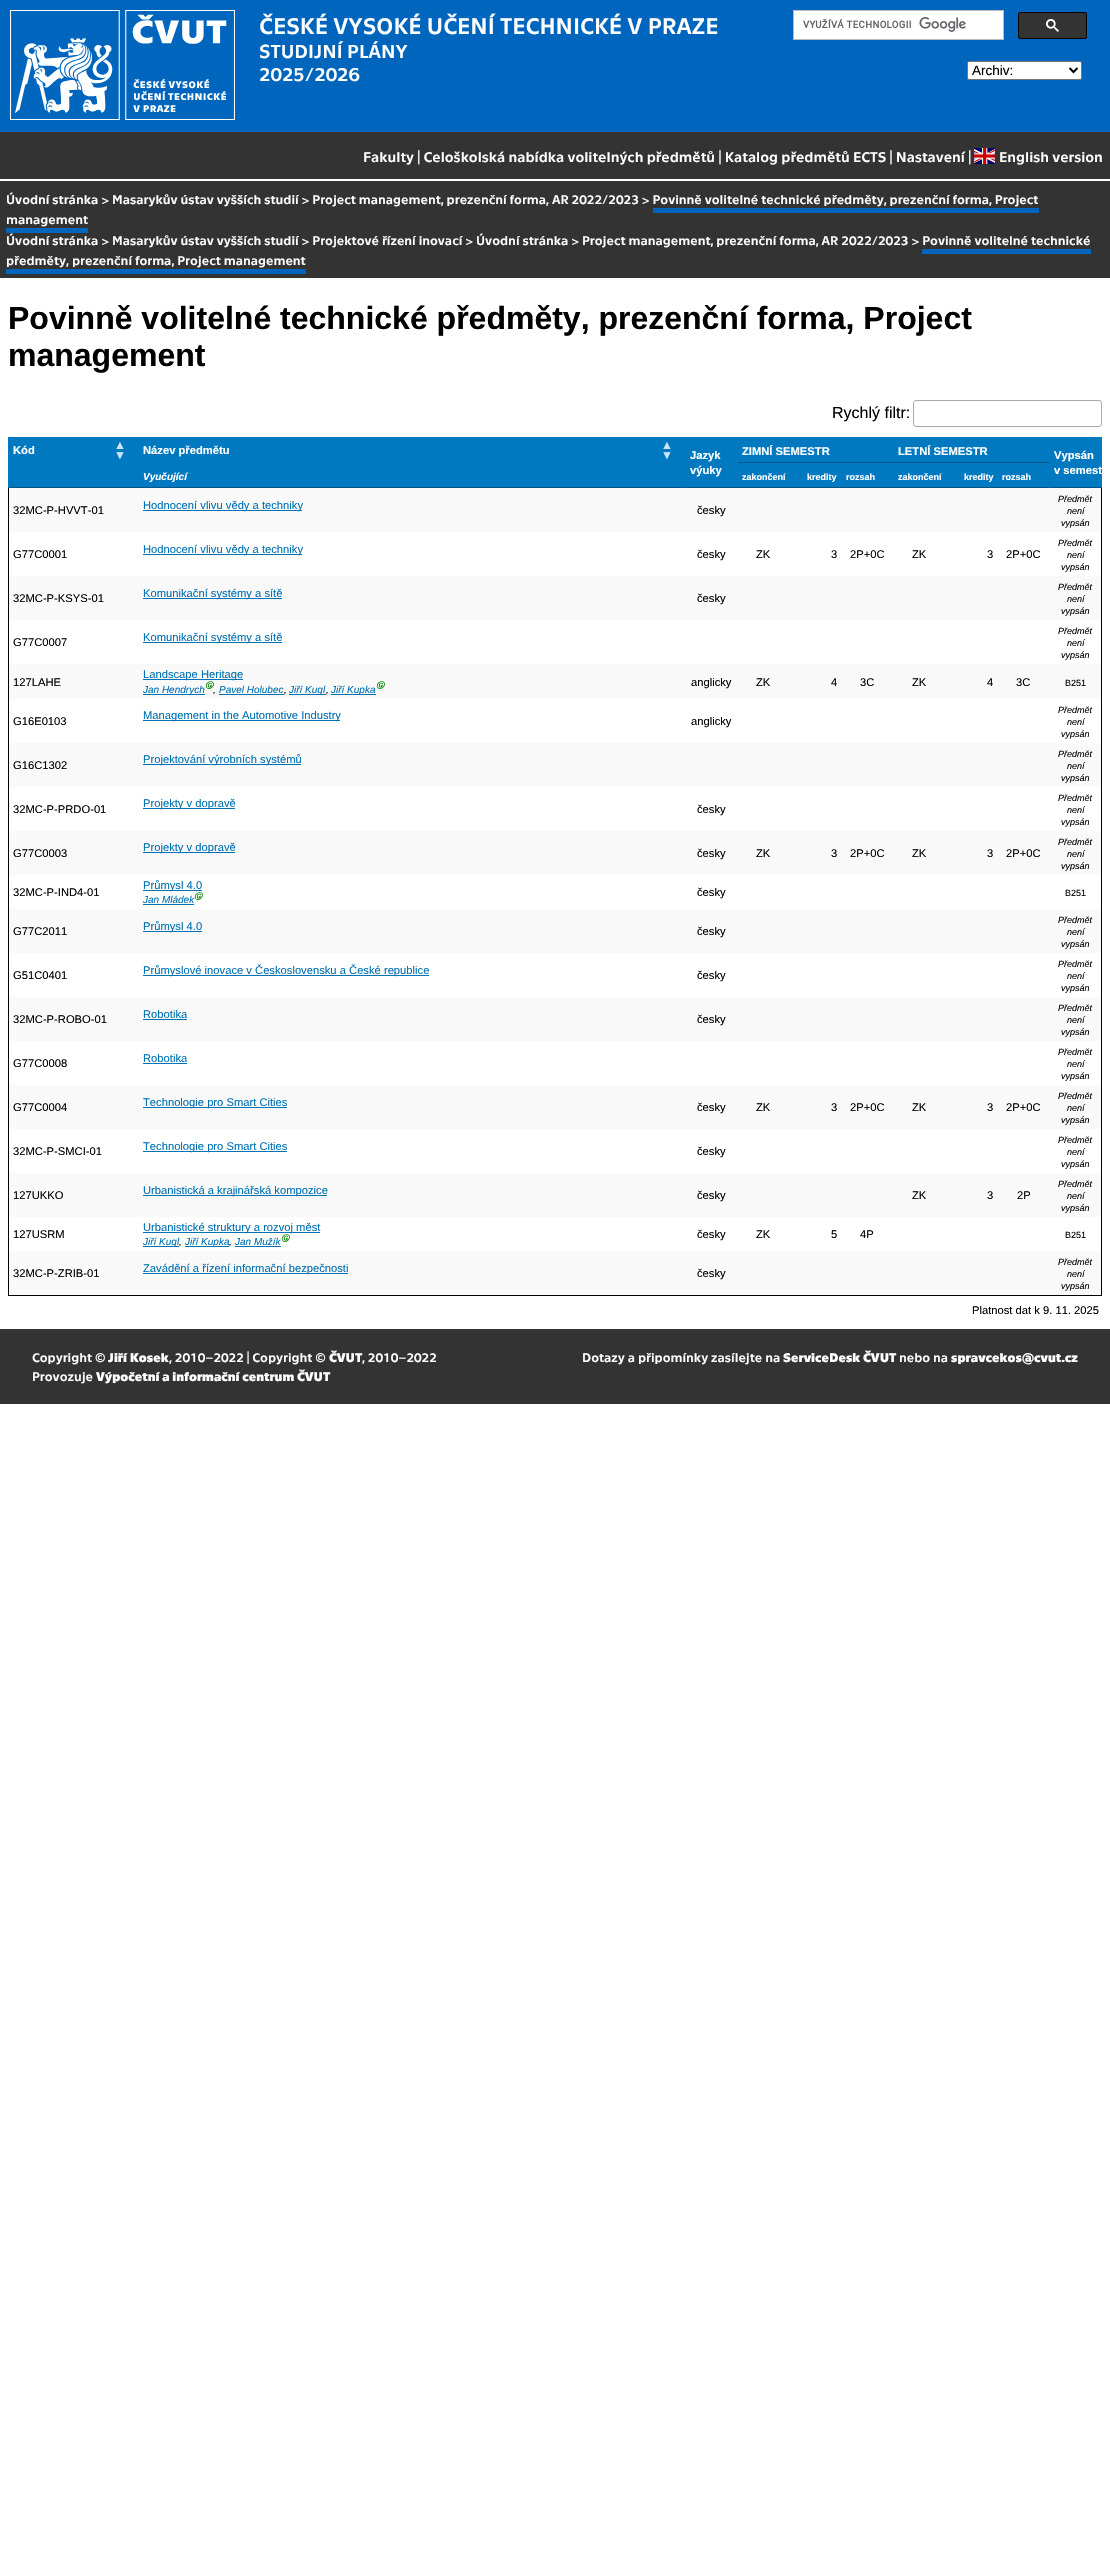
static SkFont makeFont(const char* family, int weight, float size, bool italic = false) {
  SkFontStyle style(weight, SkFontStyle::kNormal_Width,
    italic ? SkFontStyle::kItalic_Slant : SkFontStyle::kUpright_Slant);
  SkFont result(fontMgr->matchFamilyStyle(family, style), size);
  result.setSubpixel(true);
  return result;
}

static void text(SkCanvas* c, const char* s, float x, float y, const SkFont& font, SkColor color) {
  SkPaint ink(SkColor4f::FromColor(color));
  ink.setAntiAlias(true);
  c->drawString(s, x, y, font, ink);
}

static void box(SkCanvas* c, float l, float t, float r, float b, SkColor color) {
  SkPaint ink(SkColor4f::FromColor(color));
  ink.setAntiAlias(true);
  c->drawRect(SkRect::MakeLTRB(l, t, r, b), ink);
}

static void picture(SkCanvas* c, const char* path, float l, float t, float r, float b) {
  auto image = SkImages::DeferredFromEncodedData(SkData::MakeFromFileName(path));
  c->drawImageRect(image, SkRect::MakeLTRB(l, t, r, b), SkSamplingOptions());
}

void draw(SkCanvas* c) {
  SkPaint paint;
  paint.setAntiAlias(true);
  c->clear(0xffffffff);
  box(c, 0, 0, 1110, 132, 0xff0065bd);
  picture(c, "img_01.png", 10, 10, 235, 120);
  SkFont face1 = makeFont("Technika", 400, 23);
  text(c, "ČESKÉ VYSOKÉ UČENÍ TECHNICKÉ V PRAZE", 259, 34, face1, 0xffffffff);
  paint.setColor(0xffffffff);
  c->drawRect(SkRect::MakeLTRB(793.5f, 10.5f, 1003.5f, 39.5f), paint);
  paint.setStyle(SkPaint::kStroke_Style);
  paint.setStrokeWidth(1);
  paint.setColor(0xffbbbbbb);
  c->drawRect(SkRect::MakeLTRB(793.5f, 10.5f, 1003.5f, 39.5f), paint);
  picture(c, "img_02.png", 803, 17, 966, 32);
  paint.setStyle(SkPaint::kFill_Style);
  paint.setColor(0xff333333);
  c->drawRoundRect(SkRect::MakeLTRB(1018.5f, 12.5f, 1086.5f, 38.5f), 1.5f, 1.5f, paint);
  paint.setStyle(SkPaint::kStroke_Style);
  paint.setColor(0xff000000);
  c->drawRoundRect(SkRect::MakeLTRB(1018.5f, 12.5f, 1086.5f, 38.5f), 1.5f, 1.5f, paint);
  picture(c, "img_03.png", 1046, 19, 1059, 32);
  SkFont face2 = makeFont("Technika", 400, 19.25f);
  text(c, "STUDIJNÍ PLÁNY", 259, 58, face2, 0xffffffff);
  text(c, "2025/2026", 259, 81, face2, 0xffffffff);
  paint.setStyle(SkPaint::kFill_Style);
  paint.setColor(0xffffffff);
  c->drawRoundRect(SkRect::MakeLTRB(967.5f, 61.5f, 1081.5f, 79.5f), 1.5f, 1.5f, paint);
  paint.setStyle(SkPaint::kStroke_Style);
  paint.setColor(0xff767676);
  c->drawRoundRect(SkRect::MakeLTRB(967.5f, 61.5f, 1081.5f, 79.5f), 1.5f, 1.5f, paint);
  paint.setStrokeWidth(2);
  paint.setColor(0xff000000);
  c->drawPath(SkPathBuilder().moveTo(1069.5f, 68).lineTo(1073.5f, 72).lineTo(1077.5f, 68).detach(), paint);
  SkFont face3 = makeFont("Liberation Sans", 400, 13.5f);
  text(c, "Archiv:", 972, 75, face3, 0xff000000);
  box(c, 0, 132, 1110, 179, 0xff333333);
  SkFont face4 = makeFont("Technika", 400, 14.4f);
  text(c, "Fakulty | Celoškolská nabídka volitelných předmětů | Katalog předmětů ECTS | Nastavení |", 363, 162, face4, 0xffffffff);
  picture(c, "img_04.png", 974, 148, 995, 164);
  text(c, "English version", 999, 162, face4, 0xffffffff);
  box(c, 0, 181, 1110, 278, 0xff333333);
  SkFont face5 = makeFont("Technika", 400, 12.8f);
  text(c, "Úvodní stránka > Masarykův ústav vyšších studií > Project management, prezenční forma, AR 2022/2023 > Povinně volitelné technické předměty, prezenční forma, Project", 6, 204, face5, 0xffffffff);
  text(c, "management", 6, 224, face5, 0xffffffff);
  box(c, 653, 208, 1039, 213, 0xff0065bd);
  box(c, 6, 228, 88, 233, 0xff0065bd);
  text(c, "Úvodní stránka > Masarykův ústav vyšších studií > Projektové řízení inovací > Úvodní stránka > Project management, prezenční forma, AR 2022/2023 > Povinně volitelné technické", 6, 245, face5, 0xffffffff);
  text(c, "předměty, prezenční forma, Project management", 6, 265, face5, 0xffffffff);
  box(c, 922, 249, 1091, 254, 0xff0065bd);
  box(c, 6, 269, 306, 274, 0xff0065bd);
  SkFont face6 = makeFont("Liberation Sans", 700, 32);
  text(c, "Povinně volitelné technické předměty, prezenční forma, Project", 8, 329, face6, 0xff000000);
  text(c, "management", 8, 366, face6, 0xff000000);
  SkFont face7 = makeFont("Liberation Sans", 400, 16);
  text(c, "Rychlý filtr:", 832, 418, face7, 0xff000000);
  paint.setStrokeWidth(1);
  paint.setColor(0xffaaaaaa);
  c->drawRoundRect(SkRect::MakeLTRB(913.5f, 400.5f, 1101.5f, 426.5f), 2.5f, 2.5f, paint);
  box(c, 1101, 488, 1102, 1296, 0xff000000);
  box(c, 8, 1295, 1102, 1296, 0xff000000);
  box(c, 8, 488, 9, 1296, 0xff000000);
  box(c, 1049, 437, 1102, 438, 0xff0079c1);
  box(c, 997, 487, 1102, 488, 0xff005587);
  box(c, 1049, 437, 1050, 488, 0xff0079c1);
  box(c, 893, 437, 1050, 438, 0xff0079c1);
  box(c, 997, 462, 998, 488, 0xff0079c1);
  box(c, 945, 487, 998, 488, 0xff005587);
  box(c, 945, 462, 946, 488, 0xff0079c1);
  box(c, 893, 487, 946, 488, 0xff005587);
  box(c, 893, 462, 894, 488, 0xff0079c1);
  box(c, 893, 462, 1050, 463, 0xff005587);
  box(c, 893, 437, 894, 463, 0xff0079c1);
  box(c, 737, 437, 894, 438, 0xff0079c1);
  box(c, 841, 487, 894, 488, 0xff005587);
  box(c, 841, 462, 842, 488, 0xff0079c1);
  box(c, 789, 487, 842, 488, 0xff005587);
  box(c, 789, 462, 790, 488, 0xff0079c1);
  box(c, 737, 487, 790, 488, 0xff005587);
  box(c, 737, 462, 738, 488, 0xff0079c1);
  box(c, 737, 462, 894, 463, 0xff005587);
  box(c, 737, 437, 738, 463, 0xff0079c1);
  box(c, 685, 437, 738, 438, 0xff0079c1);
  box(c, 685, 487, 737, 488, 0xff005587);
  box(c, 9, 487, 686, 488, 0xff005587);
  box(c, 685, 437, 686, 488, 0xff0079c1);
  box(c, 8, 437, 686, 438, 0xff0079c1);
  box(c, 8, 462, 9, 488, 0xff0079c1);
  box(c, 8, 437, 9, 463, 0xff0079c1);
  box(c, 138, 462, 139, 488, 0xff0079c1);
  box(c, 9, 438, 685, 463, 0xff0079c1);
  SkFont face8 = makeFont("Liberation Sans", 700, 11.2f);
  text(c, "Kód", 13, 454, face8, 0xffffffff);
  SkFont face9 = makeFont("Liberation Sans", 700, 12);
  text(c, "▲", 114, 449, face9, 0xffcce4f3);
  text(c, "▼", 114, 459, face9, 0xffcce4f3);
  box(c, 685, 462, 686, 463, 0xff005587);
  text(c, "Název předmětu", 143, 454, face8, 0xffffffff);
  text(c, "▲", 661, 449, face9, 0xffcce4f3);
  text(c, "▼", 661, 459, face9, 0xffcce4f3);
  box(c, 686, 438, 737, 487, 0xff0079c1);
  text(c, "Jazyk", 690, 459, face8, 0xffffffff);
  text(c, "výuky", 690, 474, face8, 0xffffffff);
  box(c, 738, 438, 893, 462, 0xff0079c1);
  text(c, "ZIMNÍ SEMESTR", 742, 455, face8, 0xffffffff);
  box(c, 894, 438, 1049, 462, 0xff0079c1);
  text(c, "LETNÍ SEMESTR", 898, 455, face8, 0xffffffff);
  box(c, 1050, 438, 1101, 487, 0xff0079c1);
  box(c, 1101, 437, 1102, 488, 0xff0079c1);
  box(c, 1101, 487, 1102, 488, 0xff005587);
  text(c, "Vypsán", 1054, 459, face8, 0xffffffff);
  text(c, "v semest", 1054, 474, face8, 0xffffffff);
  box(c, 9, 463, 138, 487, 0xff0079c1);
  box(c, 139, 463, 685, 487, 0xff0079c1);
  box(c, 138, 487, 139, 488, 0xff005587);
  SkFont face10 = makeFont("Liberation Sans", 700, 10, true);
  text(c, "Vyučující", 143, 480, face10, 0xffffffff);
  box(c, 738, 463, 789, 487, 0xff0079c1);
  box(c, 737, 487, 738, 488, 0xff005587);
  SkFont face11 = makeFont("Liberation Sans", 700, 9);
  text(c, "zakončení", 742, 480, face11, 0xffffffff);
  box(c, 790, 463, 841, 487, 0xff0079c1);
  text(c, "kredity", 807, 480, face11, 0xffffffff);
  box(c, 842, 463, 893, 487, 0xff0079c1);
  text(c, "rozsah", 846, 480, face11, 0xffffffff);
  box(c, 894, 463, 945, 487, 0xff0079c1);
  text(c, "zakončení", 898, 480, face11, 0xffffffff);
  box(c, 946, 463, 997, 487, 0xff0079c1);
  text(c, "kredity", 964, 480, face11, 0xffffffff);
  box(c, 998, 463, 1049, 487, 0xff0079c1);
  text(c, "rozsah", 1002, 480, face11, 0xffffffff);
  box(c, 9, 488, 1101, 532, 0xfff9f9f9);
  SkFont face12 = makeFont("Liberation Sans", 400, 11.2f);
  text(c, "32MC-P-HVVT-01", 13, 514, face12, 0xff000000);
  box(c, 143, 510, 302, 511, 0xff0071b3);
  text(c, "Hodnocení vlivu vědy a techniky", 143, 509, face12, 0xff0071b3);
  text(c, "česky", 697, 514, face12, 0xff000000);
  SkFont face13 = makeFont("Liberation Sans", 400, 9, true);
  text(c, "Předmět", 1058, 502, face13, 0xff000000);
  text(c, "není", 1067, 514, face13, 0xff000000);
  text(c, "vypsán", 1061, 526, face13, 0xff000000);
  text(c, "G77C0001", 13, 558, face12, 0xff000000);
  box(c, 143, 554, 302, 555, 0xff0071b3);
  text(c, "Hodnocení vlivu vědy a techniky", 143, 553, face12, 0xff0071b3);
  text(c, "česky", 697, 558, face12, 0xff000000);
  text(c, "ZK", 756, 558, face12, 0xff000000);
  text(c, "3", 831, 558, face12, 0xff000000);
  text(c, "2P+0C", 850, 558, face12, 0xff000000);
  text(c, "ZK", 912, 558, face12, 0xff000000);
  text(c, "3", 987, 558, face12, 0xff000000);
  text(c, "2P+0C", 1006, 558, face12, 0xff000000);
  text(c, "Předmět", 1058, 546, face13, 0xff000000);
  text(c, "není", 1067, 558, face13, 0xff000000);
  text(c, "vypsán", 1061, 570, face13, 0xff000000);
  box(c, 9, 576, 1101, 620, 0xfff9f9f9);
  text(c, "32MC-P-KSYS-01", 13, 602, face12, 0xff000000);
  box(c, 143, 598, 282, 599, 0xff0071b3);
  text(c, "Komunikační systémy a sítě", 143, 597, face12, 0xff0071b3);
  text(c, "česky", 697, 602, face12, 0xff000000);
  text(c, "Předmět", 1058, 590, face13, 0xff000000);
  text(c, "není", 1067, 602, face13, 0xff000000);
  text(c, "vypsán", 1061, 614, face13, 0xff000000);
  text(c, "G77C0007", 13, 646, face12, 0xff000000);
  box(c, 143, 642, 282, 643, 0xff0071b3);
  text(c, "Komunikační systémy a sítě", 143, 641, face12, 0xff0071b3);
  text(c, "Předmět", 1058, 634, face13, 0xff000000);
  text(c, "není", 1067, 646, face13, 0xff000000);
  text(c, "vypsán", 1061, 658, face13, 0xff000000);
  box(c, 9, 664, 1101, 699, 0xfff9f9f9);
  text(c, "127LAHE", 13, 686, face12, 0xff000000);
  box(c, 143, 679, 243, 680, 0xff0071b3);
  text(c, "Landscape Heritage", 143, 678, face12, 0xff0071b3);
  box(c, 143, 694, 205, 695, 0xff0071b3);
  SkFont face14 = makeFont("Liberation Sans", 400, 10, true);
  text(c, "Jan Hendrych", 143, 693, face14, 0xff0071b3);
  SkFont face15 = makeFont("WenQuanYi Zen Hei", 700, 8, true);
  text(c, "Ⓖ", 205, 688, face15, 0xff008000);
  text(c, "Pavel Holubec", 219, 693, face14, 0xff0071b3);
  box(c, 219, 694, 284, 695, 0xff0071b3);
  box(c, 289, 694, 326, 695, 0xff0071b3);
  text(c, "Jiří Kugl", 289, 693, face14, 0xff0071b3);
  box(c, 331, 694, 376, 695, 0xff0071b3);
  text(c, "Jiří Kupka", 331, 693, face14, 0xff0071b3);
  text(c, "Ⓖ", 376, 688, face15, 0xff008000);
  text(c, ",", 213, 693, face14, 0xff000000);
  text(c, ",", 284, 693, face14, 0xff000000);
  text(c, ",", 326, 693, face14, 0xff000000);
  text(c, "anglicky", 691, 686, face12, 0xff000000);
  text(c, "ZK", 756, 686, face12, 0xff000000);
  text(c, "4", 831, 686, face12, 0xff000000);
  text(c, "3C", 860, 686, face12, 0xff000000);
  text(c, "ZK", 912, 686, face12, 0xff000000);
  text(c, "4", 987, 686, face12, 0xff000000);
  text(c, "3C", 1016, 686, face12, 0xff000000);
  SkFont face16 = makeFont("Liberation Sans", 400, 9);
  text(c, "B251", 1065, 686, face16, 0xff000000);
  text(c, "G16E0103", 13, 725, face12, 0xff000000);
  box(c, 143, 720, 340, 721, 0xff0071b3);
  text(c, "Management in the Automotive Industry", 143, 719, face12, 0xff0071b3);
  text(c, "anglicky", 691, 725, face12, 0xff000000);
  text(c, "Předmět", 1058, 713, face13, 0xff000000);
  text(c, "není", 1067, 725, face13, 0xff000000);
  text(c, "vypsán", 1061, 737, face13, 0xff000000);
  box(c, 9, 743, 1101, 787, 0xfff9f9f9);
  text(c, "G16C1302", 13, 769, face12, 0xff000000);
  box(c, 143, 764, 301, 765, 0xff0071b3);
  text(c, "Projektování výrobních systémů", 143, 763, face12, 0xff0071b3);
  text(c, "Předmět", 1058, 757, face13, 0xff000000);
  text(c, "není", 1067, 769, face13, 0xff000000);
  text(c, "vypsán", 1061, 781, face13, 0xff000000);
  text(c, "32MC-P-PRDO-01", 13, 813, face12, 0xff000000);
  box(c, 143, 808, 235, 809, 0xff0071b3);
  text(c, "Projekty v dopravě", 143, 807, face12, 0xff0071b3);
  text(c, "česky", 697, 813, face12, 0xff000000);
  text(c, "Předmět", 1058, 801, face13, 0xff000000);
  text(c, "není", 1067, 813, face13, 0xff000000);
  text(c, "vypsán", 1061, 825, face13, 0xff000000);
  box(c, 9, 831, 1101, 875, 0xfff9f9f9);
  text(c, "G77C0003", 13, 857, face12, 0xff000000);
  box(c, 143, 852, 235, 853, 0xff0071b3);
  text(c, "Projekty v dopravě", 143, 851, face12, 0xff0071b3);
  text(c, "česky", 697, 857, face12, 0xff000000);
  text(c, "ZK", 756, 857, face12, 0xff000000);
  text(c, "3", 831, 857, face12, 0xff000000);
  text(c, "2P+0C", 850, 857, face12, 0xff000000);
  text(c, "ZK", 912, 857, face12, 0xff000000);
  text(c, "3", 987, 857, face12, 0xff000000);
  text(c, "2P+0C", 1006, 857, face12, 0xff000000);
  text(c, "Předmět", 1058, 845, face13, 0xff000000);
  text(c, "není", 1067, 857, face13, 0xff000000);
  text(c, "vypsán", 1061, 869, face13, 0xff000000);
  text(c, "32MC-P-IND4-01", 13, 896, face12, 0xff000000);
  box(c, 143, 890, 202, 891, 0xff0071b3);
  text(c, "Průmysl 4.0", 143, 889, face12, 0xff0071b3);
  text(c, "Jan Mládek", 143, 903, face14, 0xff0071b3);
  box(c, 143, 904, 194, 905, 0xff0071b3);
  text(c, "Ⓖ", 194, 899, face15, 0xff008000);
  text(c, "česky", 697, 896, face12, 0xff000000);
  text(c, "B251", 1065, 896, face16, 0xff000000);
  box(c, 9, 909, 1101, 953, 0xfff9f9f9);
  text(c, "G77C2011", 13, 935, face12, 0xff000000);
  box(c, 143, 931, 202, 932, 0xff0071b3);
  text(c, "Průmysl 4.0", 143, 930, face12, 0xff0071b3);
  text(c, "česky", 697, 935, face12, 0xff000000);
  text(c, "Předmět", 1058, 923, face13, 0xff000000);
  text(c, "není", 1067, 935, face13, 0xff000000);
  text(c, "vypsán", 1061, 947, face13, 0xff000000);
  text(c, "G51C0401", 13, 979, face12, 0xff000000);
  box(c, 143, 975, 429, 976, 0xff0071b3);
  text(c, "Průmyslové inovace v Československu a České republice", 143, 974, face12, 0xff0071b3);
  text(c, "česky", 697, 979, face12, 0xff000000);
  text(c, "Předmět", 1058, 967, face13, 0xff000000);
  text(c, "není", 1067, 979, face13, 0xff000000);
  text(c, "vypsán", 1061, 991, face13, 0xff000000);
  box(c, 9, 997, 1101, 1041, 0xfff9f9f9);
  text(c, "32MC-P-ROBO-01", 13, 1023, face12, 0xff000000);
  text(c, "Robotika", 143, 1018, face12, 0xff0071b3);
  box(c, 143, 1019, 187, 1020, 0xff0071b3);
  text(c, "česky", 697, 1023, face12, 0xff000000);
  text(c, "Předmět", 1058, 1011, face13, 0xff000000);
  text(c, "není", 1067, 1023, face13, 0xff000000);
  text(c, "vypsán", 1061, 1035, face13, 0xff000000);
  text(c, "G77C0008", 13, 1067, face12, 0xff000000);
  text(c, "Robotika", 143, 1062, face12, 0xff0071b3);
  box(c, 143, 1063, 187, 1064, 0xff0071b3);
  text(c, "Předmět", 1058, 1055, face13, 0xff000000);
  text(c, "není", 1067, 1067, face13, 0xff000000);
  text(c, "vypsán", 1061, 1079, face13, 0xff000000);
  box(c, 9, 1085, 1101, 1129, 0xfff9f9f9);
  text(c, "G77C0004", 13, 1111, face12, 0xff000000);
  box(c, 143, 1107, 287, 1108, 0xff0071b3);
  text(c, "Technologie pro Smart Cities", 143, 1106, face12, 0xff0071b3);
  text(c, "česky", 697, 1111, face12, 0xff000000);
  text(c, "ZK", 756, 1111, face12, 0xff000000);
  text(c, "3", 831, 1111, face12, 0xff000000);
  text(c, "2P+0C", 850, 1111, face12, 0xff000000);
  text(c, "ZK", 912, 1111, face12, 0xff000000);
  text(c, "3", 987, 1111, face12, 0xff000000);
  text(c, "2P+0C", 1006, 1111, face12, 0xff000000);
  text(c, "Předmět", 1058, 1099, face13, 0xff000000);
  text(c, "není", 1067, 1111, face13, 0xff000000);
  text(c, "vypsán", 1061, 1123, face13, 0xff000000);
  text(c, "32MC-P-SMCI-01", 13, 1155, face12, 0xff000000);
  box(c, 143, 1151, 287, 1152, 0xff0071b3);
  text(c, "Technologie pro Smart Cities", 143, 1150, face12, 0xff0071b3);
  text(c, "česky", 697, 1155, face12, 0xff000000);
  text(c, "Předmět", 1058, 1143, face13, 0xff000000);
  text(c, "není", 1067, 1155, face13, 0xff000000);
  text(c, "vypsán", 1061, 1167, face13, 0xff000000);
  box(c, 9, 1173, 1101, 1217, 0xfff9f9f9);
  text(c, "127UKKO", 13, 1199, face12, 0xff000000);
  box(c, 143, 1195, 327, 1196, 0xff0071b3);
  text(c, "Urbanistická a krajinářská kompozice", 143, 1194, face12, 0xff0071b3);
  text(c, "česky", 697, 1199, face12, 0xff000000);
  text(c, "ZK", 912, 1199, face12, 0xff000000);
  text(c, "3", 987, 1199, face12, 0xff000000);
  text(c, "2P", 1017, 1199, face12, 0xff000000);
  text(c, "Předmět", 1058, 1187, face13, 0xff000000);
  text(c, "není", 1067, 1199, face13, 0xff000000);
  text(c, "vypsán", 1061, 1211, face13, 0xff000000);
  text(c, "127USRM", 13, 1238, face12, 0xff000000);
  box(c, 143, 1232, 320, 1233, 0xff0071b3);
  text(c, "Urbanistické struktury a rozvoj měst", 143, 1231, face12, 0xff0071b3);
  box(c, 143, 1246, 179, 1247, 0xff0071b3);
  text(c, "Jiří Kugl", 143, 1245, face14, 0xff0071b3);
  box(c, 185, 1246, 229, 1247, 0xff0071b3);
  text(c, "Jiří Kupka", 185, 1245, face14, 0xff0071b3);
  text(c, "Jan Mužík", 235, 1245, face14, 0xff0071b3);
  box(c, 235, 1246, 281, 1247, 0xff0071b3);
  text(c, "Ⓖ", 281, 1241, face15, 0xff008000);
  text(c, ",", 179, 1245, face14, 0xff000000);
  text(c, ",", 229, 1245, face14, 0xff000000);
  text(c, "česky", 697, 1238, face12, 0xff000000);
  text(c, "ZK", 756, 1238, face12, 0xff000000);
  text(c, "5", 831, 1238, face12, 0xff000000);
  text(c, "4P", 860, 1238, face12, 0xff000000);
  text(c, "B251", 1065, 1238, face16, 0xff000000);
  box(c, 9, 1251, 1101, 1295, 0xfff9f9f9);
  text(c, "32MC-P-ZRIB-01", 13, 1277, face12, 0xff000000);
  box(c, 143, 1273, 348, 1274, 0xff0071b3);
  text(c, "Zavádění a řízení informační bezpečnosti", 143, 1272, face12, 0xff0071b3);
  text(c, "česky", 697, 1277, face12, 0xff000000);
  text(c, "Předmět", 1058, 1265, face13, 0xff000000);
  text(c, "není", 1067, 1277, face13, 0xff000000);
  text(c, "vypsán", 1061, 1289, face13, 0xff000000);
  text(c, "Platnost dat k 9. 11. 2025", 972, 1314, face12, 0xff000000);
  box(c, 0, 1329, 1110, 1404, 0xff333333);
  text(c, "Copyright ©", 32, 1362, face5, 0xffffffff);
  SkFont face17 = makeFont("Technika", 700, 12.8f);
  text(c, "Jiří Kosek", 108, 1362, face17, 0xffffffff);
  text(c, ", 2010–2022 | Copyright ©", 169, 1362, face5, 0xffffffff);
  text(c, "ČVUT", 329, 1362, face17, 0xffffffff);
  text(c, ", 2010–2022", 362, 1362, face5, 0xffffffff);
  text(c, "Provozuje", 32, 1381, face5, 0xffffffff);
  text(c, "Výpočetní a informační centrum ČVUT", 96, 1381, face17, 0xffffffff);
  text(c, "Dotazy a připomínky zasílejte na", 582, 1362, face5, 0xffffffff);
  text(c, "ServiceDesk ČVUT", 783, 1362, face17, 0xffffffff);
  text(c, "nebo na", 899, 1362, face5, 0xffffffff);
  text(c, "spravcekos@cvut.cz", 951, 1362, face17, 0xffffffff);
}
